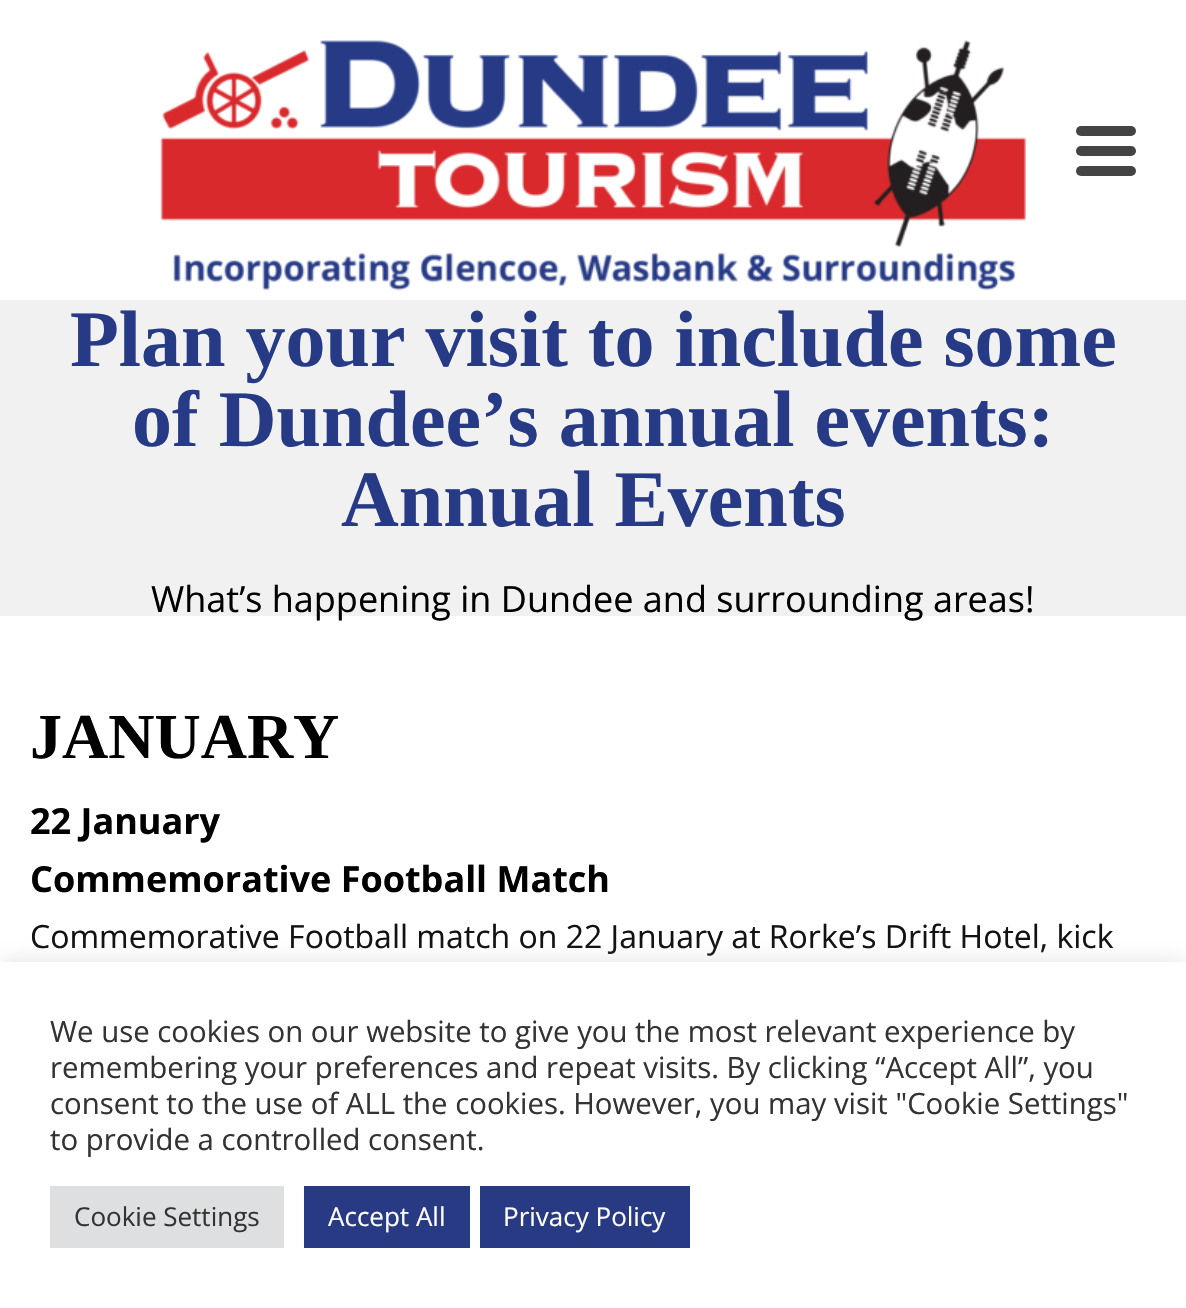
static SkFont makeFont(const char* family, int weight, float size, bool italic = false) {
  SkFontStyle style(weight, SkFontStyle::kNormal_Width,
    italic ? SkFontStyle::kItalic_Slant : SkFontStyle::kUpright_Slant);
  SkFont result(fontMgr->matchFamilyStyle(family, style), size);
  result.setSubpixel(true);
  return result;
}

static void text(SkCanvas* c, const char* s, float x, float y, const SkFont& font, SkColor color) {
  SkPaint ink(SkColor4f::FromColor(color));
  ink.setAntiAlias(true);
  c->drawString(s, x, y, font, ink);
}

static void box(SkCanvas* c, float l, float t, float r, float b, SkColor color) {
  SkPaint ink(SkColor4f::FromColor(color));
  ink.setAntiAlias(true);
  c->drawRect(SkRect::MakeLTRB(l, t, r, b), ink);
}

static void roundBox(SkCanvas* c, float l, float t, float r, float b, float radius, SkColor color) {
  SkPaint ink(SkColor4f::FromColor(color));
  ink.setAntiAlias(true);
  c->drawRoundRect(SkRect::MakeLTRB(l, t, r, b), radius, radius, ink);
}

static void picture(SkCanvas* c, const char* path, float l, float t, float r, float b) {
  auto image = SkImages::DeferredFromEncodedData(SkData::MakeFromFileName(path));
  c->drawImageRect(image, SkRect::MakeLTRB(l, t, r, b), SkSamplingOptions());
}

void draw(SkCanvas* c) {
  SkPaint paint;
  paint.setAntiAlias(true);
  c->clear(0xffffffff);
  picture(c, "img_01.png", 160, 40, 1026, 291);
  roundBox(c, 1076, 126, 1136, 136, 5, 0xff444444);
  roundBox(c, 1076, 146, 1136, 156, 5, 0xff444444);
  roundBox(c, 1076, 166, 1136, 176, 5, 0xff444444);
  box(c, 0, 300, 1186, 616, 0xfff1f1f1);
  SkFont face1 = makeFont("Liberation Serif", 700, 80);
  text(c, "Plan your visit to include some", 70, 366, face1, 0xff263a86);
  text(c, "of Dundee’s annual events:", 132, 446, face1, 0xff263a86);
  text(c, "Annual Events", 341, 526, face1, 0xff263a86);
  SkFont face2 = makeFont("Open Sans", 400, 36);
  text(c, "What’s happening in Dundee and surrounding areas!", 151, 612, face2, 0xff000000);
  SkFont face3 = makeFont("Liberation Serif", 700, 64);
  text(c, "JANUARY", 30, 758, face3, 0xff000000);
  SkFont face4 = makeFont("Open Sans", 700, 36);
  text(c, "22 January", 30, 834, face4, 0xff000000);
  text(c, "Commemorative Football Match", 30, 892, face4, 0xff000000);
  SkFont face5 = makeFont("Open Sans", 400, 32);
  text(c, "Commemorative Football match on 22 January at Rorke’s Drift Hotel, kick", 30, 948, face5, 0xff111111);
  paint.setColor(0x4dacabab);
  paint.setMaskFilter(SkMaskFilter::MakeBlur(kNormal_SkBlurStyle, 10));
  c->drawRect(SkRect::MakeLTRB(0, 960, 1186, 1306), paint);
  paint.setMaskFilter(nullptr);
  box(c, 0, 962, 1186, 1308, 0xffffffff);
  SkFont face6 = makeFont("Open Sans", 400, 29.35f);
  text(c, "We use cookies on our website to give you the most relevant experience by", 50, 1042, face6, 0xff333333);
  text(c, "remembering your preferences and repeat visits. By clicking “Accept All”, you", 50, 1078, face6, 0xff333333);
  text(c, "consent to the use of ALL the cookies. However, you may visit \"Cookie Settings\"", 50, 1114, face6, 0xff333333);
  text(c, "to provide a controlled consent.", 50, 1150, face6, 0xff333333);
  box(c, 50, 1186, 284, 1248, 0xffdedfe0);
  SkFont face7 = makeFont("Open Sans", 400, 26);
  text(c, "Cookie Settings", 74, 1226, face7, 0xff333333);
  box(c, 304, 1186, 470, 1248, 0xff283a84);
  text(c, "Accept All", 328, 1226, face7, 0xffffffff);
  box(c, 480, 1186, 690, 1248, 0xff283a84);
  text(c, "Privacy Policy", 503, 1226, face7, 0xffffffff);
}
